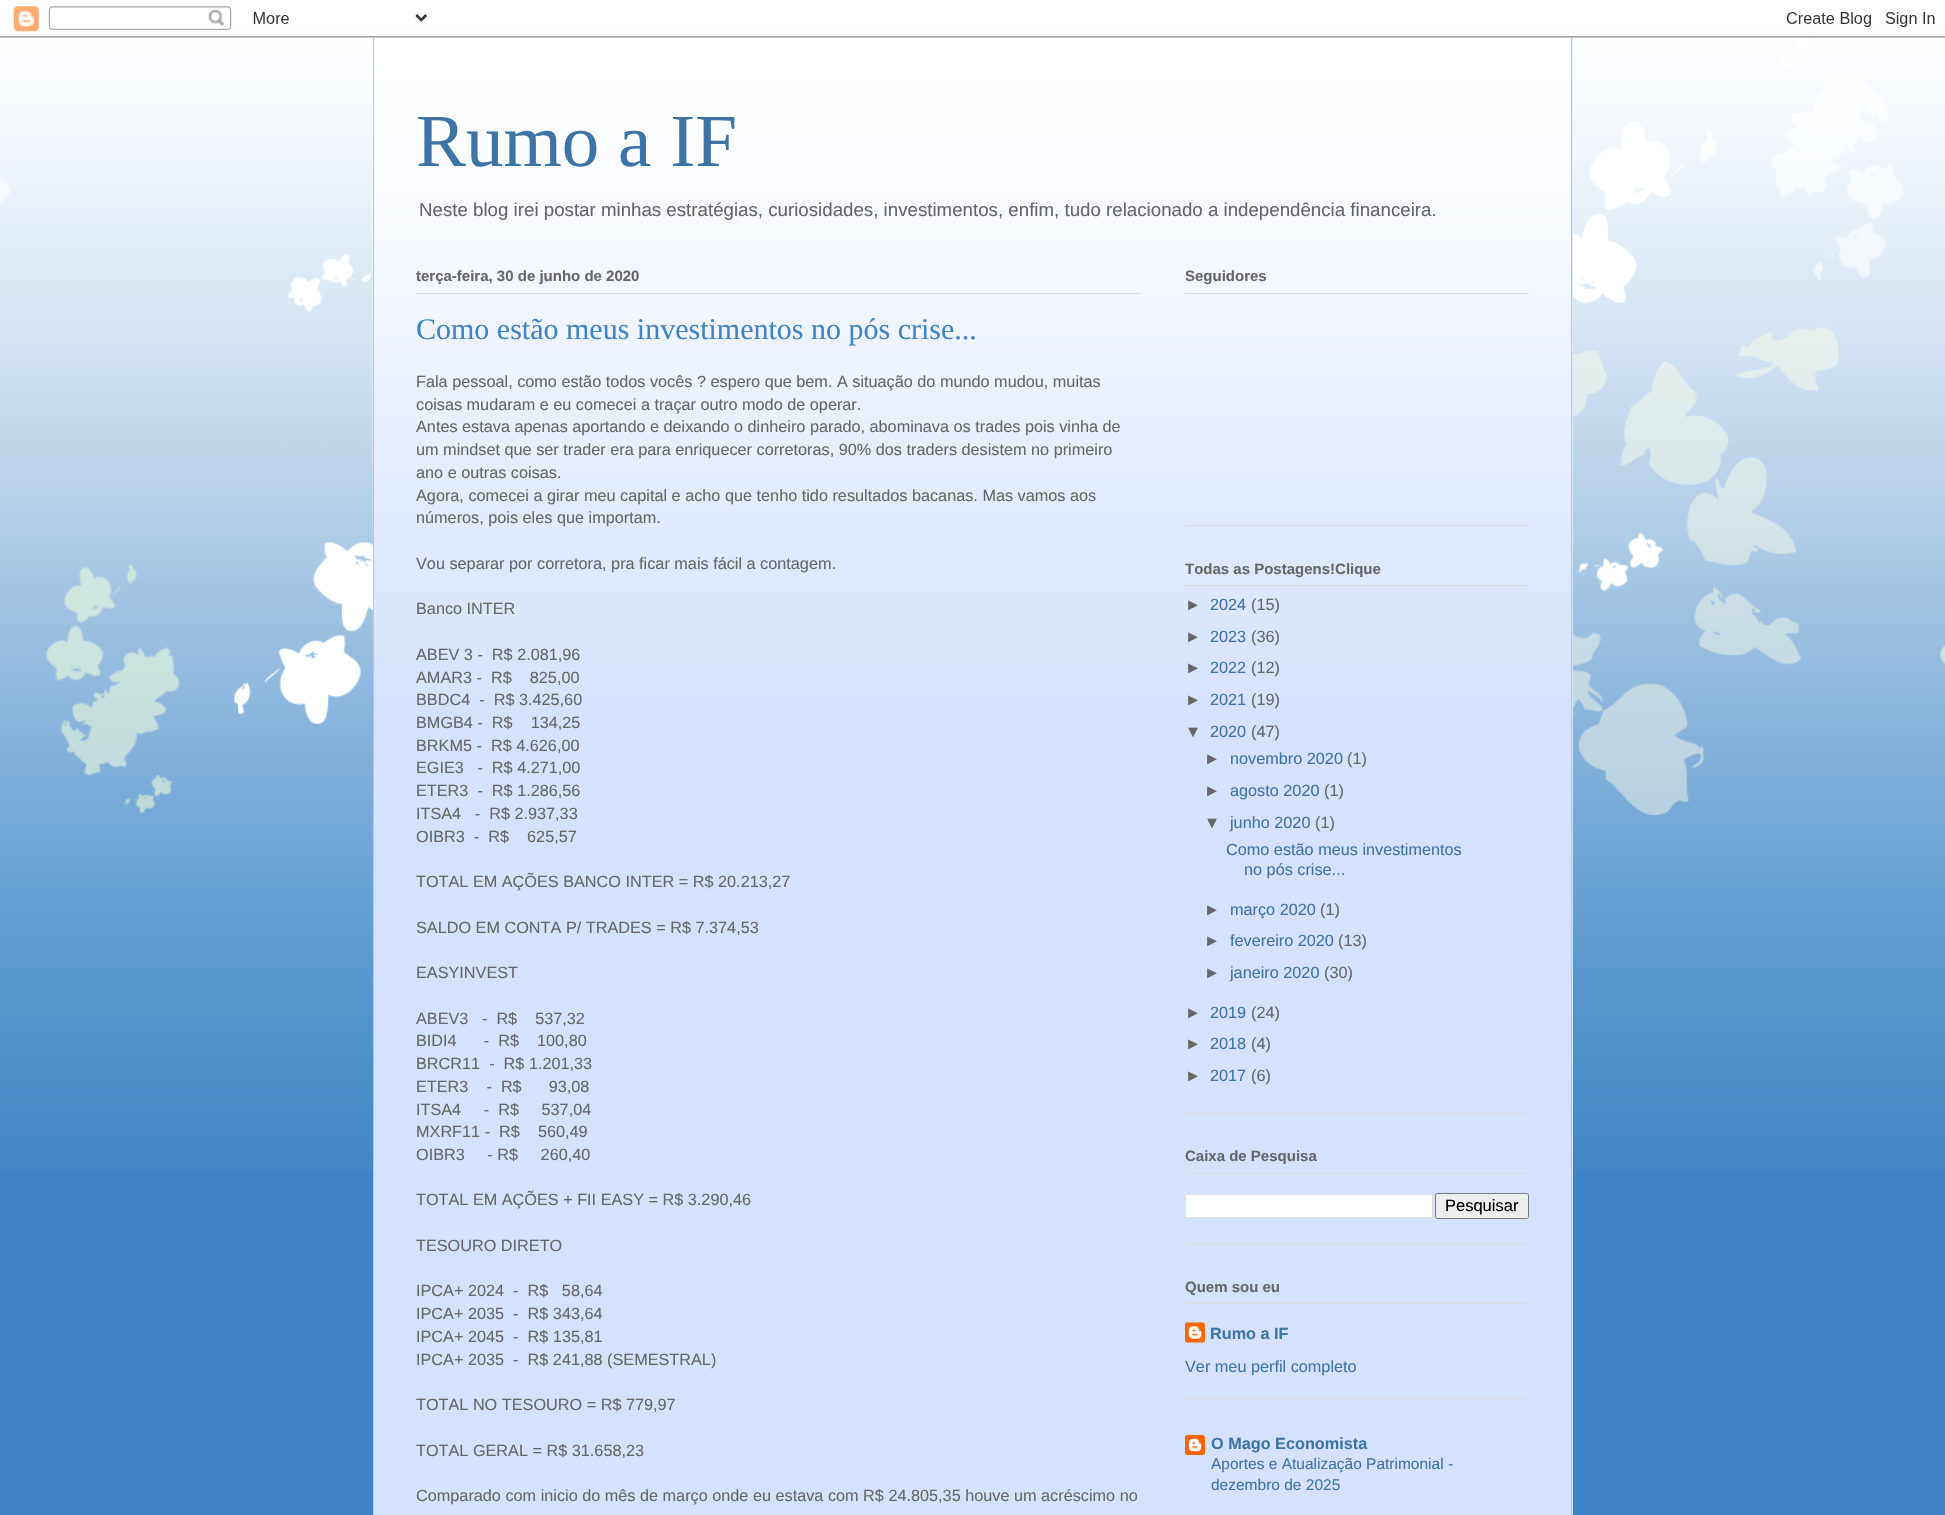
static SkFont makeFont(const char* family, int weight, float size, bool italic = false) {
  SkFontStyle style(weight, SkFontStyle::kNormal_Width,
    italic ? SkFontStyle::kItalic_Slant : SkFontStyle::kUpright_Slant);
  SkFont result(fontMgr->matchFamilyStyle(family, style), size);
  result.setSubpixel(true);
  return result;
}

static void text(SkCanvas* c, const char* s, float x, float y, const SkFont& font, SkColor color) {
  SkPaint ink(SkColor4f::FromColor(color));
  ink.setAntiAlias(true);
  c->drawString(s, x, y, font, ink);
}

static void box(SkCanvas* c, float l, float t, float r, float b, SkColor color) {
  SkPaint ink(SkColor4f::FromColor(color));
  ink.setAntiAlias(true);
  c->drawRect(SkRect::MakeLTRB(l, t, r, b), ink);
}

static void picture(SkCanvas* c, const char* path, float l, float t, float r, float b) {
  auto image = SkImages::DeferredFromEncodedData(SkData::MakeFromFileName(path));
  c->drawImageRect(image, SkRect::MakeLTRB(l, t, r, b), SkSamplingOptions());
}

void draw(SkCanvas* c) {
  SkPaint paint;
  paint.setAntiAlias(true);
  c->clear(0xff3d85c6);
  picture(c, "img_01.png", 0, 0, 1945, 1171);
  picture(c, "img_02.png", 0, 6, 1945, 38);
  box(c, 374, 38, 1573, 1515, 0xffd4e1ff);
  picture(c, "img_03.png", 372, 38, 1573, 698);
  box(c, 1571, 38, 1572, 1515, 0xffbbbbff);
  box(c, 373, 38, 374, 1515, 0xffbbbbff);
  SkFont face1 = makeFont("Liberation Serif", 400, 75);
  text(c, "Rumo a IF", 416, 166, face1, 0xff3d74a5);
  SkFont face2 = makeFont("Liberation Sans", 400, 18.7f);
  text(c, "Neste blog irei postar minhas estratégias, curiosidades, investimentos, enfim, tudo relacionado a independência financeira.", 419, 216, face2, 0xff666666);
  box(c, 416, 293, 1141, 294, 0xffdbdbdb);
  SkFont face3 = makeFont("Liberation Sans", 700, 15);
  text(c, "terça-feira, 30 de junho de 2020", 416, 281, face3, 0xff666666);
  SkFont face4 = makeFont("Liberation Serif", 400, 30);
  text(c, "Como estão meus investimentos no pós crise...", 416, 339, face4, 0xff3d85c6);
  SkFont face5 = makeFont("Liberation Sans", 400, 16.25f);
  text(c, "Fala pessoal, como estão todos vocês ? espero que bem. A situação do mundo mudou, muitas", 416, 387, face5, 0xff666666);
  text(c, "coisas mudaram e eu comecei a traçar outro modo de operar.", 416, 410, face5, 0xff666666);
  text(c, "Antes estava apenas aportando e deixando o dinheiro parado, abominava os trades pois vinha de", 416, 432, face5, 0xff666666);
  text(c, "um mindset que ser trader era para enriquecer corretoras, 90% dos traders desistem no primeiro", 416, 455, face5, 0xff666666);
  text(c, "ano e outras coisas.", 416, 478, face5, 0xff666666);
  text(c, "Agora, comecei a girar meu capital e acho que tenho tido resultados bacanas. Mas vamos aos", 416, 501, face5, 0xff666666);
  text(c, "números, pois eles que importam.", 416, 523, face5, 0xff666666);
  text(c, "Vou separar por corretora, pra ficar mais fácil a contagem.", 416, 569, face5, 0xff666666);
  text(c, "Banco INTER", 416, 614, face5, 0xff666666);
  text(c, "ABEV 3 -  R$ 2.081,96", 416, 660, face5, 0xff666666);
  text(c, "AMAR3 -  R$    825,00", 416, 683, face5, 0xff666666);
  text(c, "BBDC4  -  R$ 3.425,60", 416, 705, face5, 0xff666666);
  text(c, "BMGB4 -  R$    134,25", 416, 728, face5, 0xff666666);
  text(c, "BRKM5 -  R$ 4.626,00", 416, 751, face5, 0xff666666);
  text(c, "EGIE3   -  R$ 4.271,00", 416, 773, face5, 0xff666666);
  text(c, "ETER3  -  R$ 1.286,56", 416, 796, face5, 0xff666666);
  text(c, "ITSA4   -  R$ 2.937,33", 416, 819, face5, 0xff666666);
  text(c, "OIBR3  -  R$    625,57", 416, 842, face5, 0xff666666);
  text(c, "TOTAL EM AÇÕES BANCO INTER = R$ 20.213,27", 416, 887, face5, 0xff666666);
  text(c, "SALDO EM CONTA P/ TRADES = R$ 7.374,53", 416, 933, face5, 0xff666666);
  text(c, "EASYINVEST", 416, 978, face5, 0xff666666);
  text(c, "ABEV3   -  R$    537,32", 416, 1024, face5, 0xff666666);
  text(c, "BIDI4      -  R$    100,80", 416, 1046, face5, 0xff666666);
  text(c, "BRCR11  -  R$ 1.201,33", 416, 1069, face5, 0xff666666);
  text(c, "ETER3    -  R$      93,08", 416, 1092, face5, 0xff666666);
  text(c, "ITSA4     -  R$     537,04", 416, 1115, face5, 0xff666666);
  text(c, "MXRF11 -  R$    560,49", 416, 1137, face5, 0xff666666);
  text(c, "OIBR3     - R$     260,40", 416, 1160, face5, 0xff666666);
  text(c, "TOTAL EM AÇÕES + FII EASY = R$ 3.290,46", 416, 1205, face5, 0xff666666);
  text(c, "TESOURO DIRETO", 416, 1251, face5, 0xff666666);
  text(c, "IPCA+ 2024  -  R$   58,64", 416, 1296, face5, 0xff666666);
  text(c, "IPCA+ 2035  -  R$ 343,64", 416, 1319, face5, 0xff666666);
  text(c, "IPCA+ 2045  -  R$ 135,81", 416, 1342, face5, 0xff666666);
  text(c, "IPCA+ 2035  -  R$ 241,88 (SEMESTRAL)", 416, 1365, face5, 0xff666666);
  text(c, "TOTAL NO TESOURO = R$ 779,97", 416, 1410, face5, 0xff666666);
  text(c, "TOTAL GERAL = R$ 31.658,23", 416, 1456, face5, 0xff666666);
  text(c, "Comparado com inicio do mês de março onde eu estava com R$ 24.805,35 houve um acréscimo no", 416, 1501, face5, 0xff666666);
  box(c, 1185, 525, 1529, 526, 0xffdbdbdb);
  box(c, 1185, 293, 1529, 294, 0xffdbdbdb);
  text(c, "Seguidores", 1185, 281, face3, 0xff666666);
  box(c, 1185, 1113, 1529, 1114, 0xffdbdbdb);
  box(c, 1185, 585, 1529, 586, 0xffdbdbdb);
  text(c, "Todas as Postagens!Clique", 1185, 574, face3, 0xff666666);
  text(c, "►", 1185, 610, face5, 0xff666666);
  text(c, "2024", 1210, 610, face5, 0xff3d74a5);
  text(c, "(15)", 1251, 610, face5, 0xff666666);
  text(c, "►", 1185, 642, face5, 0xff666666);
  text(c, "2023", 1210, 642, face5, 0xff3d74a5);
  text(c, "(36)", 1251, 642, face5, 0xff666666);
  text(c, "►", 1185, 673, face5, 0xff666666);
  text(c, "2022", 1210, 673, face5, 0xff3d74a5);
  text(c, "(12)", 1251, 673, face5, 0xff666666);
  text(c, "►", 1185, 705, face5, 0xff666666);
  text(c, "2021", 1210, 705, face5, 0xff3d74a5);
  text(c, "(19)", 1251, 705, face5, 0xff666666);
  text(c, "▼", 1185, 737, face5, 0xff666666);
  text(c, "2020", 1210, 737, face5, 0xff3d74a5);
  text(c, "(47)", 1251, 737, face5, 0xff666666);
  text(c, "►", 1204, 764, face5, 0xff666666);
  text(c, "novembro 2020", 1230, 764, face5, 0xff3d74a5);
  text(c, "(1)", 1347, 764, face5, 0xff666666);
  text(c, "►", 1204, 796, face5, 0xff666666);
  text(c, "agosto 2020", 1230, 796, face5, 0xff3d74a5);
  text(c, "(1)", 1324, 796, face5, 0xff666666);
  text(c, "▼", 1204, 828, face5, 0xff666666);
  text(c, "junho 2020", 1230, 828, face5, 0xff3d74a5);
  text(c, "(1)", 1315, 828, face5, 0xff666666);
  text(c, "Como estão meus investimentos", 1226, 855, face5, 0xff3d74a5);
  text(c, "no pós crise...", 1244, 875, face5, 0xff3d74a5);
  text(c, "►", 1204, 915, face5, 0xff666666);
  text(c, "março 2020", 1230, 915, face5, 0xff3d74a5);
  text(c, "(1)", 1320, 915, face5, 0xff666666);
  text(c, "►", 1204, 946, face5, 0xff666666);
  text(c, "fevereiro 2020", 1230, 946, face5, 0xff3d74a5);
  text(c, "(13)", 1338, 946, face5, 0xff666666);
  text(c, "►", 1204, 978, face5, 0xff666666);
  text(c, "janeiro 2020", 1230, 978, face5, 0xff3d74a5);
  text(c, "(30)", 1324, 978, face5, 0xff666666);
  text(c, "►", 1185, 1018, face5, 0xff666666);
  text(c, "2019", 1210, 1018, face5, 0xff3d74a5);
  text(c, "(24)", 1251, 1018, face5, 0xff666666);
  text(c, "►", 1185, 1049, face5, 0xff666666);
  text(c, "2018", 1210, 1049, face5, 0xff3d74a5);
  text(c, "(4)", 1251, 1049, face5, 0xff666666);
  text(c, "►", 1185, 1081, face5, 0xff666666);
  text(c, "2017", 1210, 1081, face5, 0xff3d74a5);
  text(c, "(6)", 1251, 1081, face5, 0xff666666);
  box(c, 1185, 1243, 1529, 1244, 0xffdbdbdb);
  box(c, 1185, 1173, 1529, 1174, 0xffdbdbdb);
  text(c, "Caixa de Pesquisa", 1185, 1161, face3, 0xff666666);
  paint.setColor(0xffffffff);
  c->drawRect(SkRect::MakeLTRB(1185.5f, 1194.5f, 1432.5f, 1217.5f), paint);
  paint.setStyle(SkPaint::kStroke_Style);
  paint.setStrokeWidth(1);
  paint.setColor(0xffdddddd);
  c->drawRect(SkRect::MakeLTRB(1185.5f, 1194.5f, 1432.5f, 1217.5f), paint);
  paint.setStyle(SkPaint::kFill_Style);
  paint.setColor(0xffefefef);
  c->drawRoundRect(SkRect::MakeLTRB(1435.5f, 1193.5f, 1528.5f, 1218.5f), 2, 2, paint);
  paint.setStyle(SkPaint::kStroke_Style);
  paint.setColor(0xff767676);
  c->drawRoundRect(SkRect::MakeLTRB(1435.5f, 1193.5f, 1528.5f, 1218.5f), 2, 2, paint);
  SkFont face6 = makeFont("Liberation Sans", 400, 16.5f);
  text(c, "Pesquisar", 1445, 1211, face6, 0xff000000);
  box(c, 1185, 1398, 1529, 1399, 0xffdbdbdb);
  box(c, 1185, 1303, 1529, 1304, 0xffdbdbdb);
  text(c, "Quem sou eu", 1185, 1292, face3, 0xff666666);
  picture(c, "img_04.png", 1185, 1322, 1205, 1343);
  SkFont face7 = makeFont("Liberation Sans", 700, 16.25f);
  text(c, "Rumo a IF", 1210, 1339, face7, 0xff3d74a5);
  text(c, "Ver meu perfil completo", 1185, 1372, face5, 0xff3d74a5);
  picture(c, "img_05.png", 1185, 1435, 1205, 1455);
  text(c, "O Mago Economista", 1211, 1449, face7, 0xff3d74a5);
  SkFont face8 = makeFont("Liberation Sans", 400, 15.5f);
  text(c, "Aportes e Atualização Patrimonial -", 1211, 1469, face8, 0xff3d74a5);
  text(c, "dezembro de 2025", 1211, 1490, face8, 0xff3d74a5);
}
